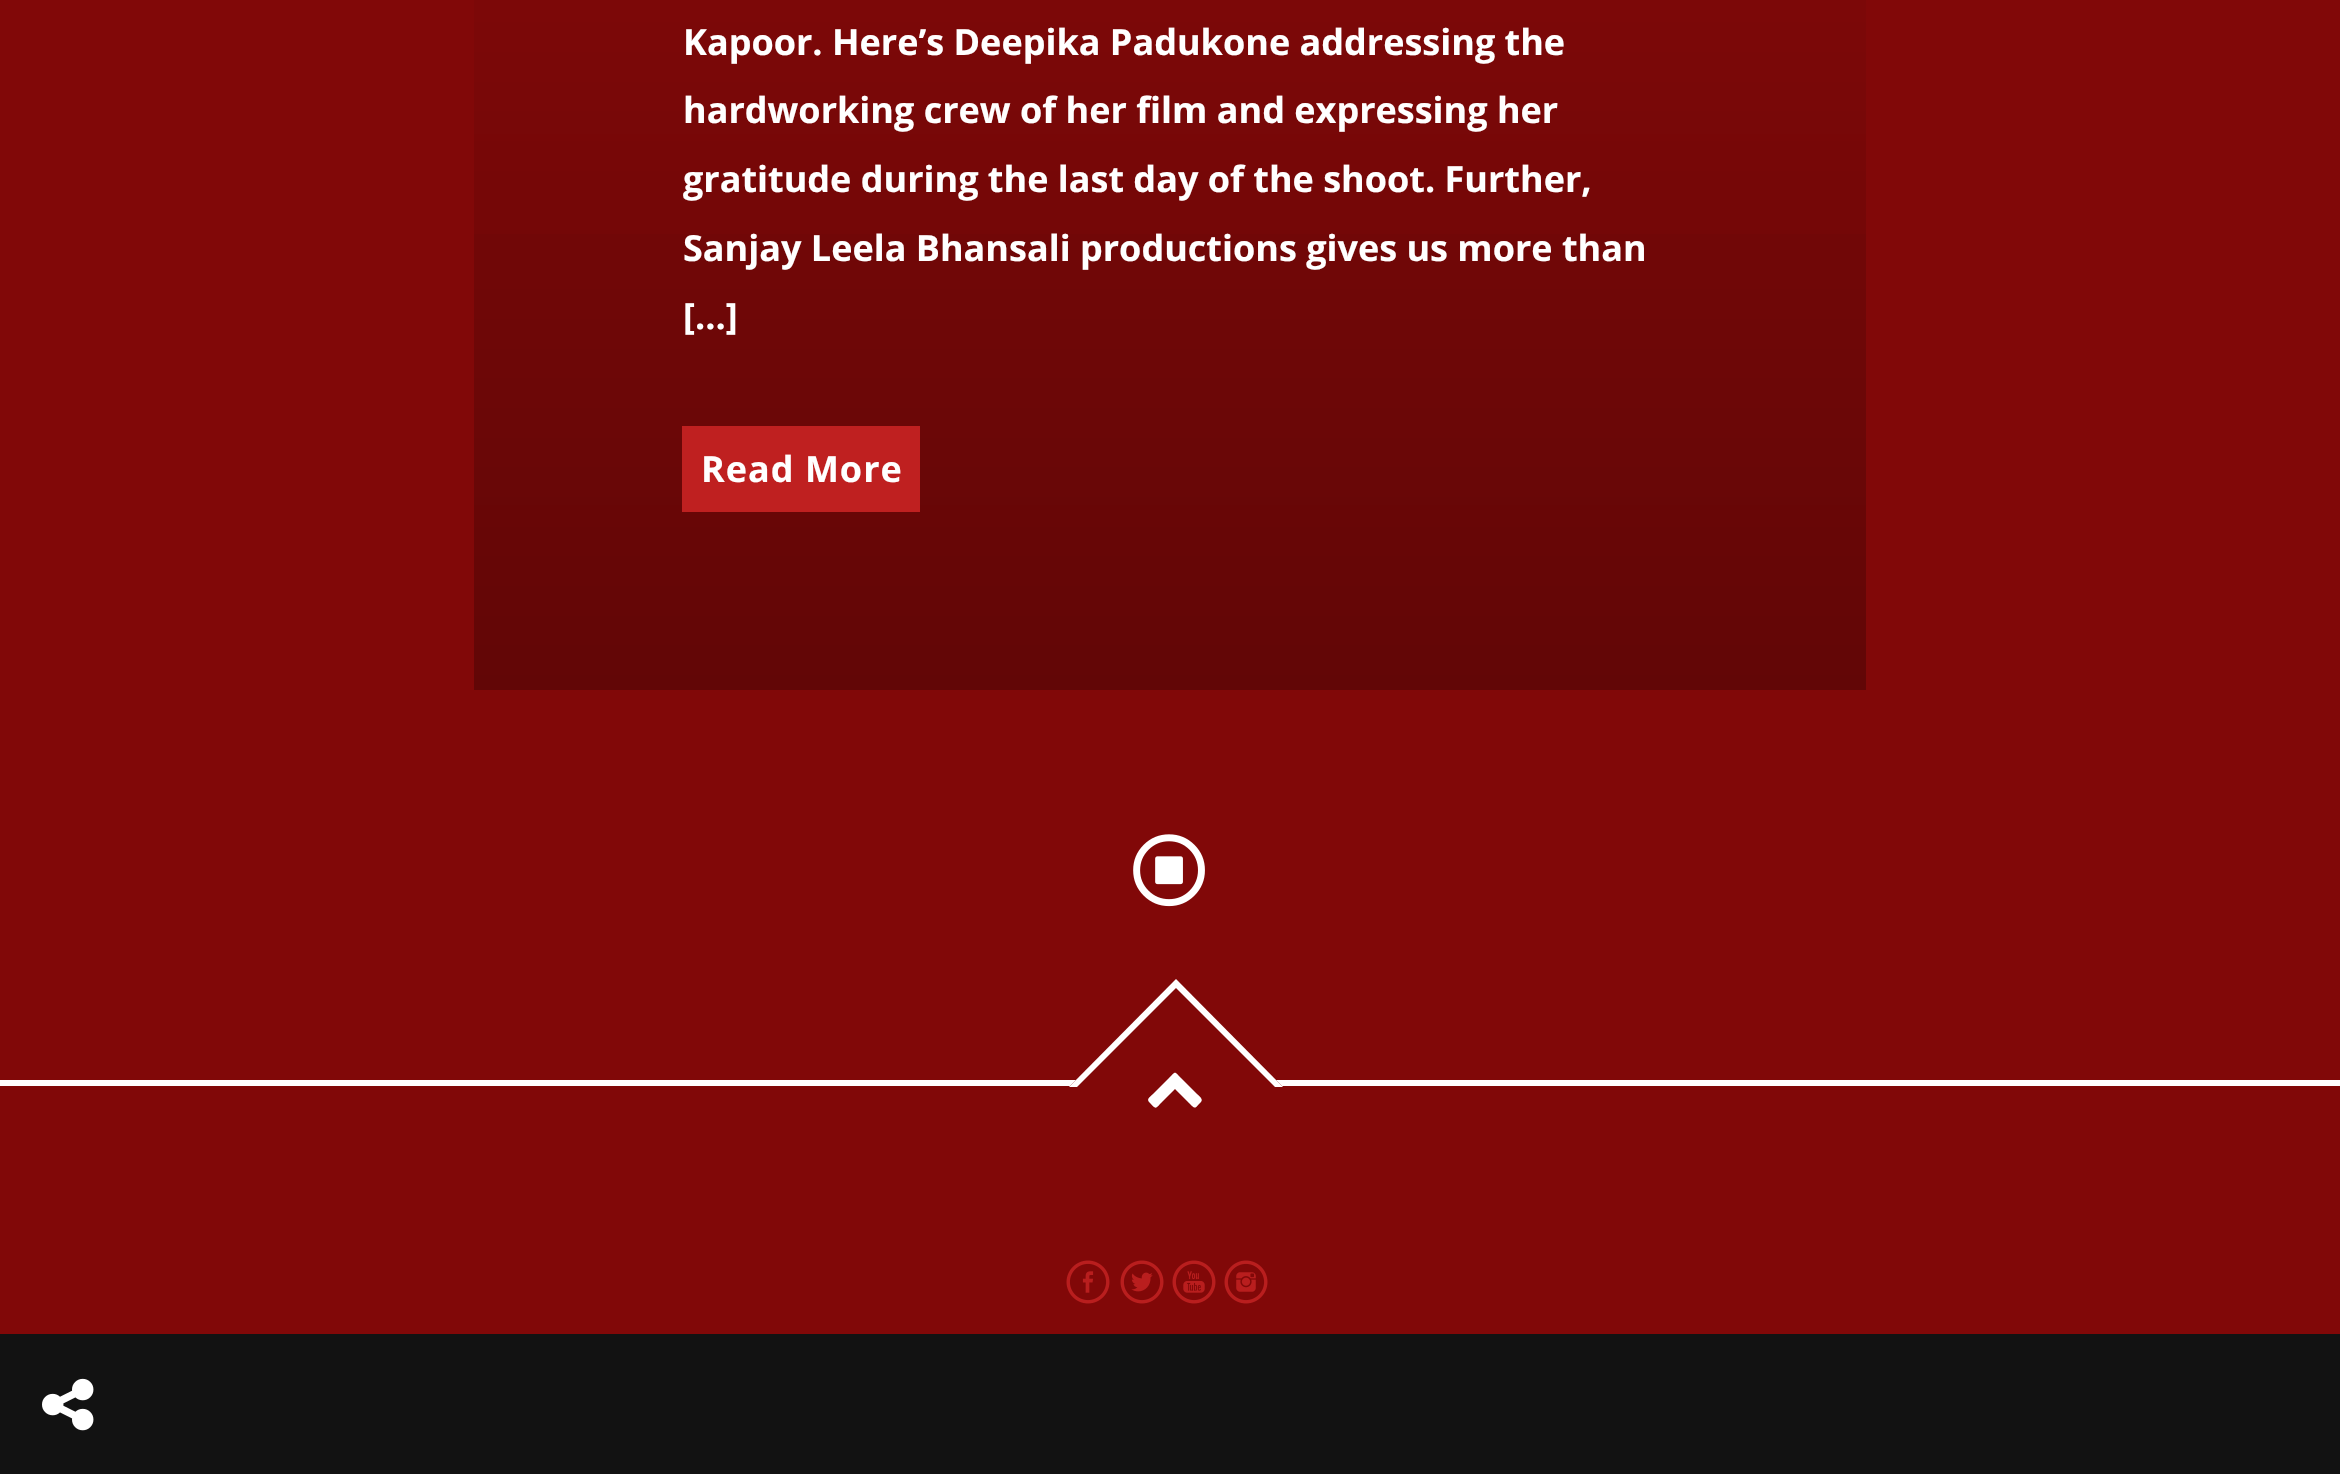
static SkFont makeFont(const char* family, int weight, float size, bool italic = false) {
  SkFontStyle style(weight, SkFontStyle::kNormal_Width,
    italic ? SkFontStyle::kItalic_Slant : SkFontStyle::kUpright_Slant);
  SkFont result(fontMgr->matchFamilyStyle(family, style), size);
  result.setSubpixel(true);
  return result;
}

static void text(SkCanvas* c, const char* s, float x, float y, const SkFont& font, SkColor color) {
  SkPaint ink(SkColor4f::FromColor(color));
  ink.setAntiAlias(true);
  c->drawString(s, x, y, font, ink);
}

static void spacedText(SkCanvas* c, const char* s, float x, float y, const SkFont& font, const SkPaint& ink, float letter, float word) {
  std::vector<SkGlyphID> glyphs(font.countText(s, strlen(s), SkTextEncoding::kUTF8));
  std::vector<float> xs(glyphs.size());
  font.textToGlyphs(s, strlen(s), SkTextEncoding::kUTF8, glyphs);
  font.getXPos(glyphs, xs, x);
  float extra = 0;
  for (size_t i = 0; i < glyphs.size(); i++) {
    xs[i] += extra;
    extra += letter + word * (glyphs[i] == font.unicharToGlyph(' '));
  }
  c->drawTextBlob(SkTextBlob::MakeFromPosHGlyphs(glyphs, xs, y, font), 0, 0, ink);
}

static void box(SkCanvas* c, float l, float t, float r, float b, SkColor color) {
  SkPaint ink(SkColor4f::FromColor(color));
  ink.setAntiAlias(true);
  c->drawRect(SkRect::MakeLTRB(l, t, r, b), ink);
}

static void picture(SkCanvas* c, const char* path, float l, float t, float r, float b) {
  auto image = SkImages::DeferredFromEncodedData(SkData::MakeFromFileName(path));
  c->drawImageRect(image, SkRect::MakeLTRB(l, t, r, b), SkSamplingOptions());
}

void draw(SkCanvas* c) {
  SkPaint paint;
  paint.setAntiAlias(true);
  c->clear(0xff810808);
  {
    const SkColor colors[] = {0xff7e0808, 0xff650606};
    const float stops[] = {0, 1};
    const SkPoint ends[] = {{1170, -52}, {1170, 690}};
    paint.setShader(SkGradientShader::MakeLinear(ends, colors, stops, 2, SkTileMode::kClamp));
    paint.setAlpha(255);
  }
  c->drawRect(SkRect::MakeLTRB(474, 0, 1866, 690), paint);
  {
    const SkColor colors[] = {0x00000000, 0x08000000};
    const float stops[] = {0, 1};
    const SkPoint ends[] = {{1170, -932}, {1170, 690}};
    paint.setShader(SkGradientShader::MakeLinear(ends, colors, stops, 2, SkTileMode::kClamp));
    paint.setAlpha(255);
  }
  c->drawRect(SkRect::MakeLTRB(474, 234, 1866, 690), paint);
  SkFont face1 = makeFont("Open Sans", 700, 36);
  text(c, "Kapoor. Here’s Deepika Padukone addressing the", 683, 55, face1, 0xffffffff);
  text(c, "hardworking crew of her film and expressing her", 683, 123, face1, 0xffffffff);
  text(c, "gratitude during the last day of the shoot. Further,", 683, 192, face1, 0xffffffff);
  text(c, "Sanjay Leela Bhansali productions gives us more than", 683, 261, face1, 0xffffffff);
  text(c, "[…]", 683, 329, face1, 0xffffffff);
  box(c, 682, 426, 920, 512, 0xffbf2020);
  paint.setShader(nullptr);
  paint.setColor(0xffffffff);
  spacedText(c, "Read More", 701, 482, face1, paint, 1, 0);
  picture(c, "img_01.png", 1133, 834, 1205, 907);
  box(c, 0, 1080, 2340, 1086, 0xffffffff);
  paint.setColor(0xff810808);
  c->drawPath(SkPathBuilder().moveTo(1176, 979).lineTo(1283, 1087).lineTo(1176, 1194).lineTo(1069, 1087).close().detach(), paint);
  paint.setColor(0xffffffff);
  c->drawPath(SkPathBuilder().moveTo(1176, 979).lineTo(1283, 1087).lineTo(1275, 1087).lineTo(1176, 988).close().detach(), paint);
  c->drawPath(SkPathBuilder().moveTo(1069, 1087).lineTo(1176, 979).lineTo(1176, 988).lineTo(1077, 1087).close().detach(), paint);
  c->drawPath(SkPathBuilder().moveTo(1201, 1102).cubicTo(1195, 1108, 1196, 1110, 1190, 1104).lineTo(1175, 1089).lineTo(1160, 1104).cubicTo(1155, 1110, 1155, 1108, 1150, 1103).cubicTo(1146, 1099, 1149, 1098, 1153, 1094).lineTo(1169, 1078).cubicTo(1176, 1071, 1174, 1071, 1181, 1078).lineTo(1197, 1094).cubicTo(1198, 1095, 1204, 1099, 1201, 1102).close().detach(), paint);
  picture(c, "img_02.png", 1066, 1260, 1110, 1304);
  picture(c, "img_03.png", 1120, 1260, 1164, 1304);
  picture(c, "img_04.png", 1172, 1260, 1216, 1304);
  picture(c, "img_05.png", 1224, 1260, 1268, 1304);
  box(c, 0, 1334, 2340, 1474, 0xff121212);
  picture(c, "img_06.png", 42, 1378, 94, 1431);
}
